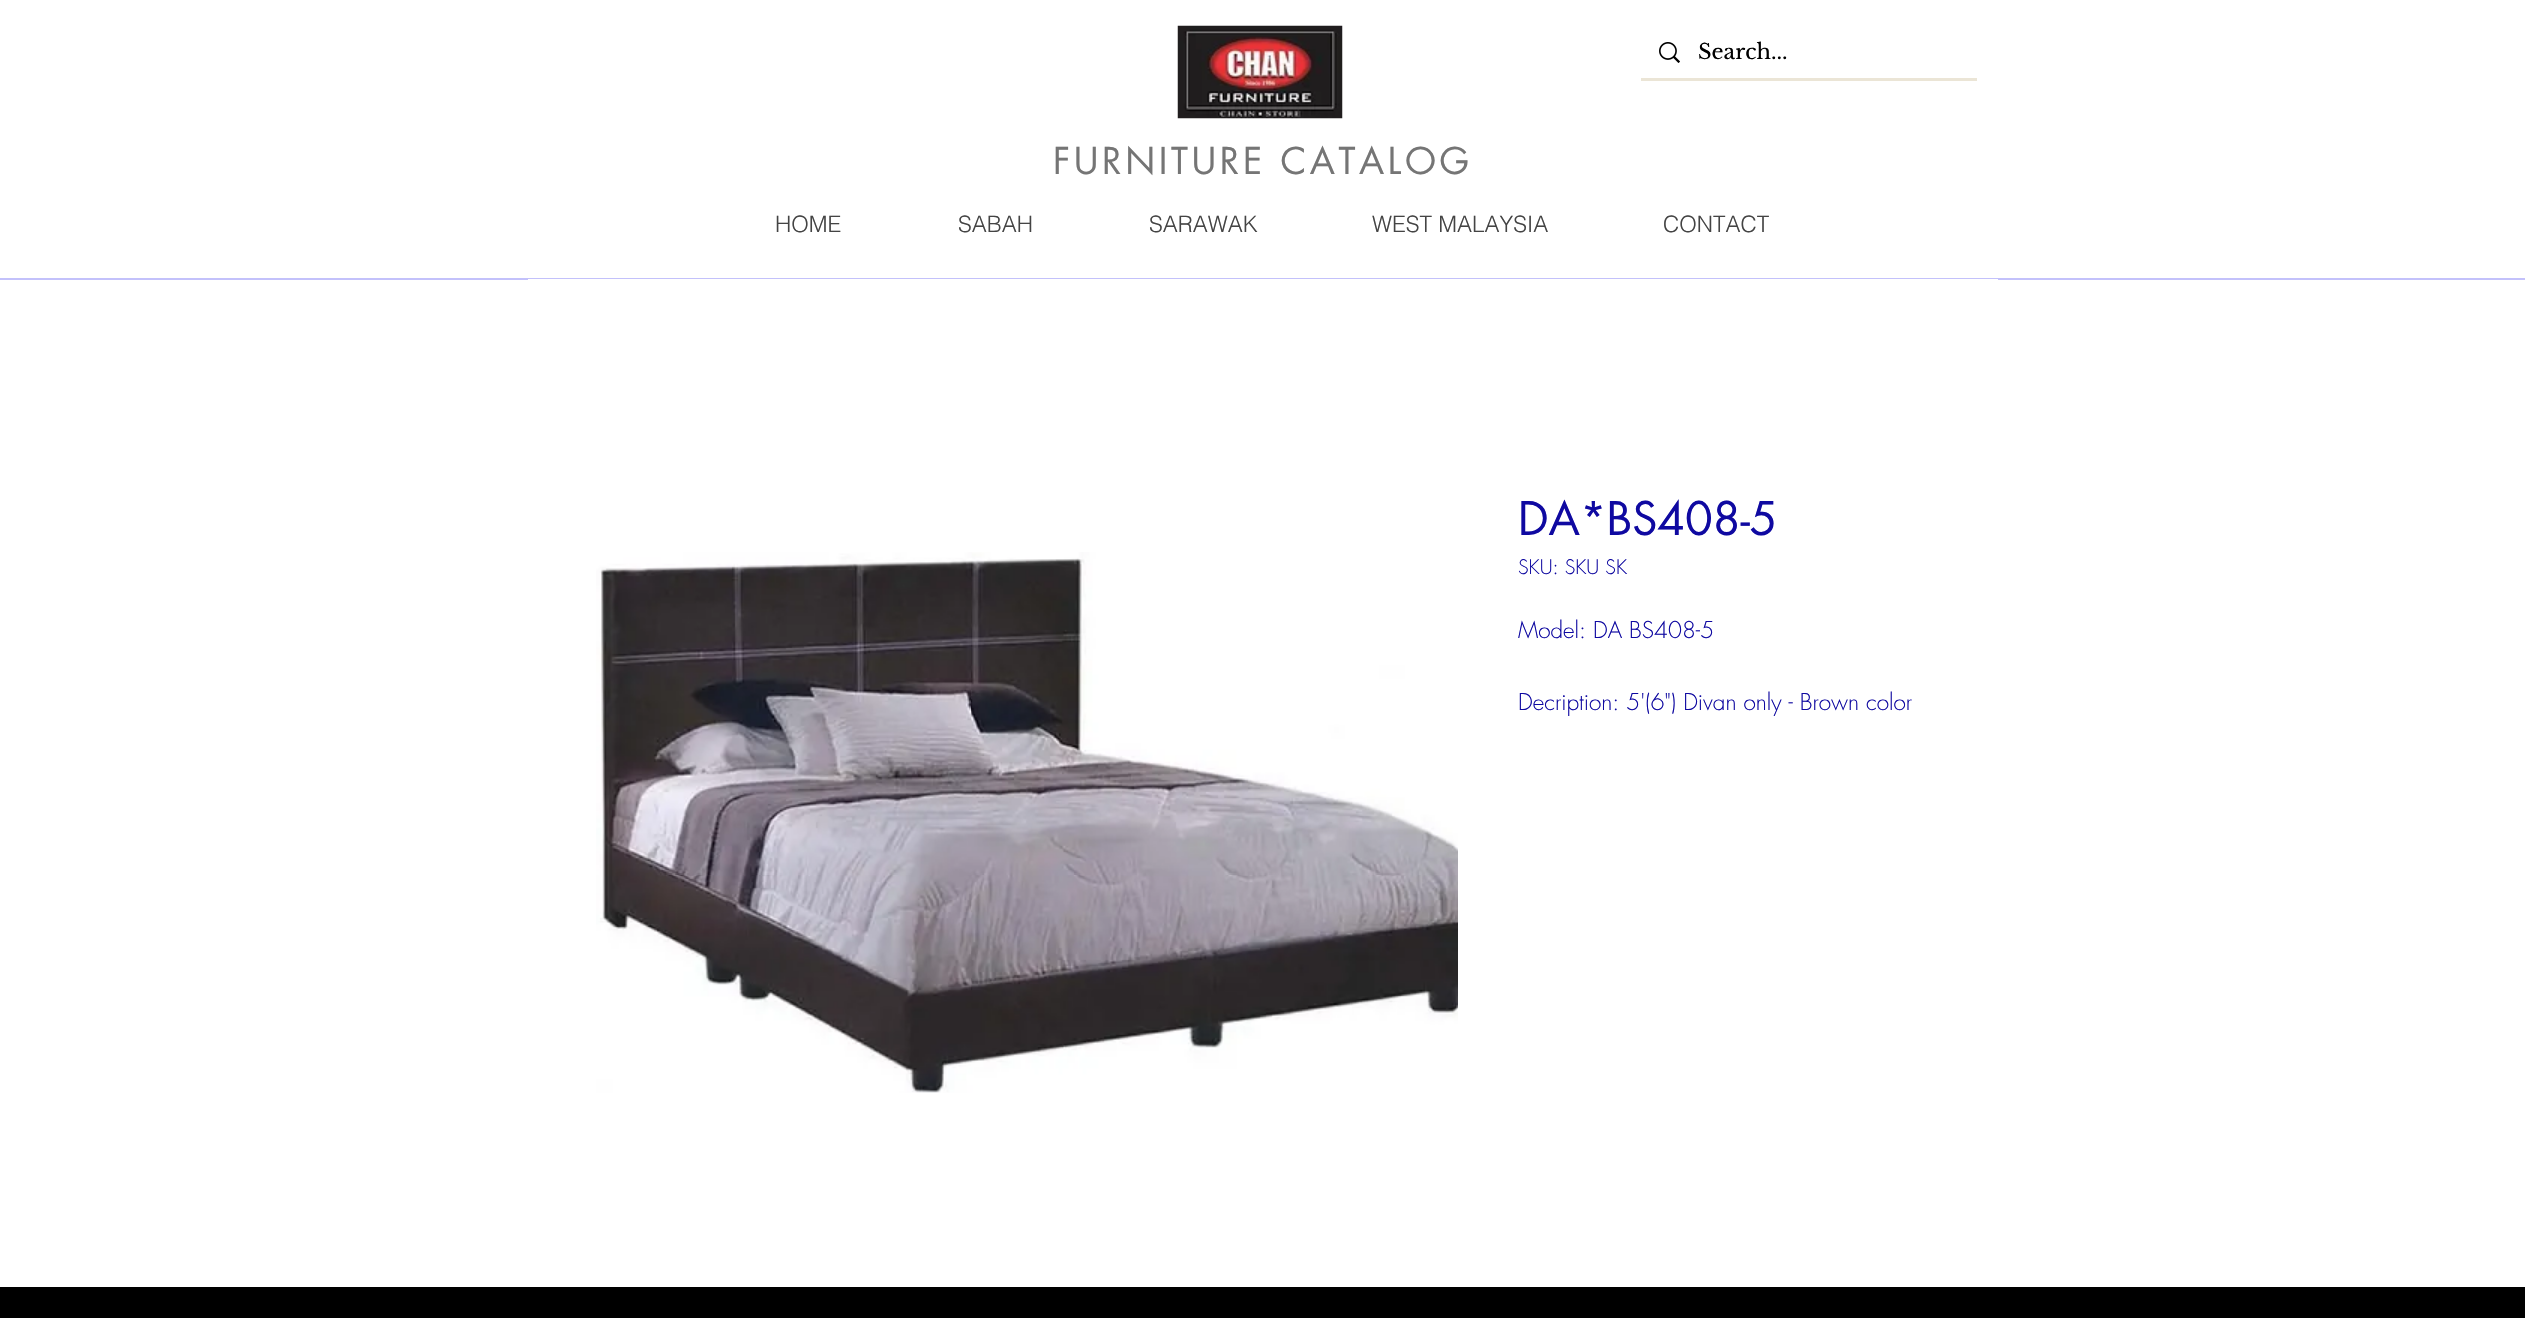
static SkFont makeFont(const char* family, int weight, float size, bool italic = false) {
  SkFontStyle style(weight, SkFontStyle::kNormal_Width,
    italic ? SkFontStyle::kItalic_Slant : SkFontStyle::kUpright_Slant);
  SkFont result(fontMgr->matchFamilyStyle(family, style), size);
  result.setSubpixel(true);
  return result;
}

static void text(SkCanvas* c, const char* s, float x, float y, const SkFont& font, SkColor color) {
  SkPaint ink(SkColor4f::FromColor(color));
  ink.setAntiAlias(true);
  c->drawString(s, x, y, font, ink);
}

static void spacedText(SkCanvas* c, const char* s, float x, float y, const SkFont& font, const SkPaint& ink, float letter, float word) {
  std::vector<SkGlyphID> glyphs(font.countText(s, strlen(s), SkTextEncoding::kUTF8));
  std::vector<float> xs(glyphs.size());
  font.textToGlyphs(s, strlen(s), SkTextEncoding::kUTF8, glyphs);
  font.getXPos(glyphs, xs, x);
  float extra = 0;
  for (size_t i = 0; i < glyphs.size(); i++) {
    xs[i] += extra;
    extra += letter + word * (glyphs[i] == font.unicharToGlyph(' '));
  }
  c->drawTextBlob(SkTextBlob::MakeFromPosHGlyphs(glyphs, xs, y, font), 0, 0, ink);
}

static void box(SkCanvas* c, float l, float t, float r, float b, SkColor color) {
  SkPaint ink(SkColor4f::FromColor(color));
  ink.setAntiAlias(true);
  c->drawRect(SkRect::MakeLTRB(l, t, r, b), ink);
}

static void picture(SkCanvas* c, const char* path, float l, float t, float r, float b) {
  auto image = SkImages::DeferredFromEncodedData(SkData::MakeFromFileName(path));
  c->drawImageRect(image, SkRect::MakeLTRB(l, t, r, b), SkSamplingOptions());
}

void draw(SkCanvas* c) {
  SkPaint paint;
  paint.setAntiAlias(true);
  c->clear(0xffffffff);
  picture(c, "img_01.png", 1177, 25, 1343, 119);
  box(c, 1641, 78, 1977, 81, 0xffebe5d6);
  picture(c, "img_02.png", 1659, 42, 1680, 63);
  SkFont face1 = makeFont("Libre Baskerville", 400, 21);
  text(c, "Search...", 1698, 59, face1, 0xff000000);
  SkFont face2 = makeFont("futura", 400, 36);
  paint.setColor(0xff757575);
  spacedText(c, "FURNITURE CATALOG", 1053, 174, face2, paint, 3.6f, 0);
  SkFont face3 = makeFont("helvetica", 300, 22.5f);
  text(c, "HOME", 775, 232, face3, 0xff444444);
  text(c, "SABAH", 958, 232, face3, 0xff444444);
  text(c, "SARAWAK", 1149, 232, face3, 0xff444444);
  text(c, "WEST MALAYSIA", 1372, 232, face3, 0xff444444);
  text(c, "CONTACT", 1663, 232, face3, 0xff444444);
  box(c, 0, 278, 2525, 280, 0xffc3c1fb);
  box(c, 528, 279, 1998, 280, 0xffffffff);
  picture(c, "img_03.png", 596, 552, 1458, 1093);
  SkFont face4 = makeFont("futura", 400, 45);
  text(c, "DA*BS408-5", 1518, 535, face4, 0xff0f09a1);
  SkFont face5 = makeFont("futura", 300, 19.5f);
  text(c, "SKU: SKU SK", 1518, 574, face5, 0xff0f09a1);
  SkFont face6 = makeFont("futura", 300, 22.5f);
  text(c, "Model: DA BS408-5", 1518, 638, face6, 0xff0f09a1);
  text(c, "Decription: 5'(6\") Divan only - Brown color", 1518, 710, face6, 0xff0f09a1);
  box(c, 0, 1287, 2525, 1318, 0xff000000);
}
